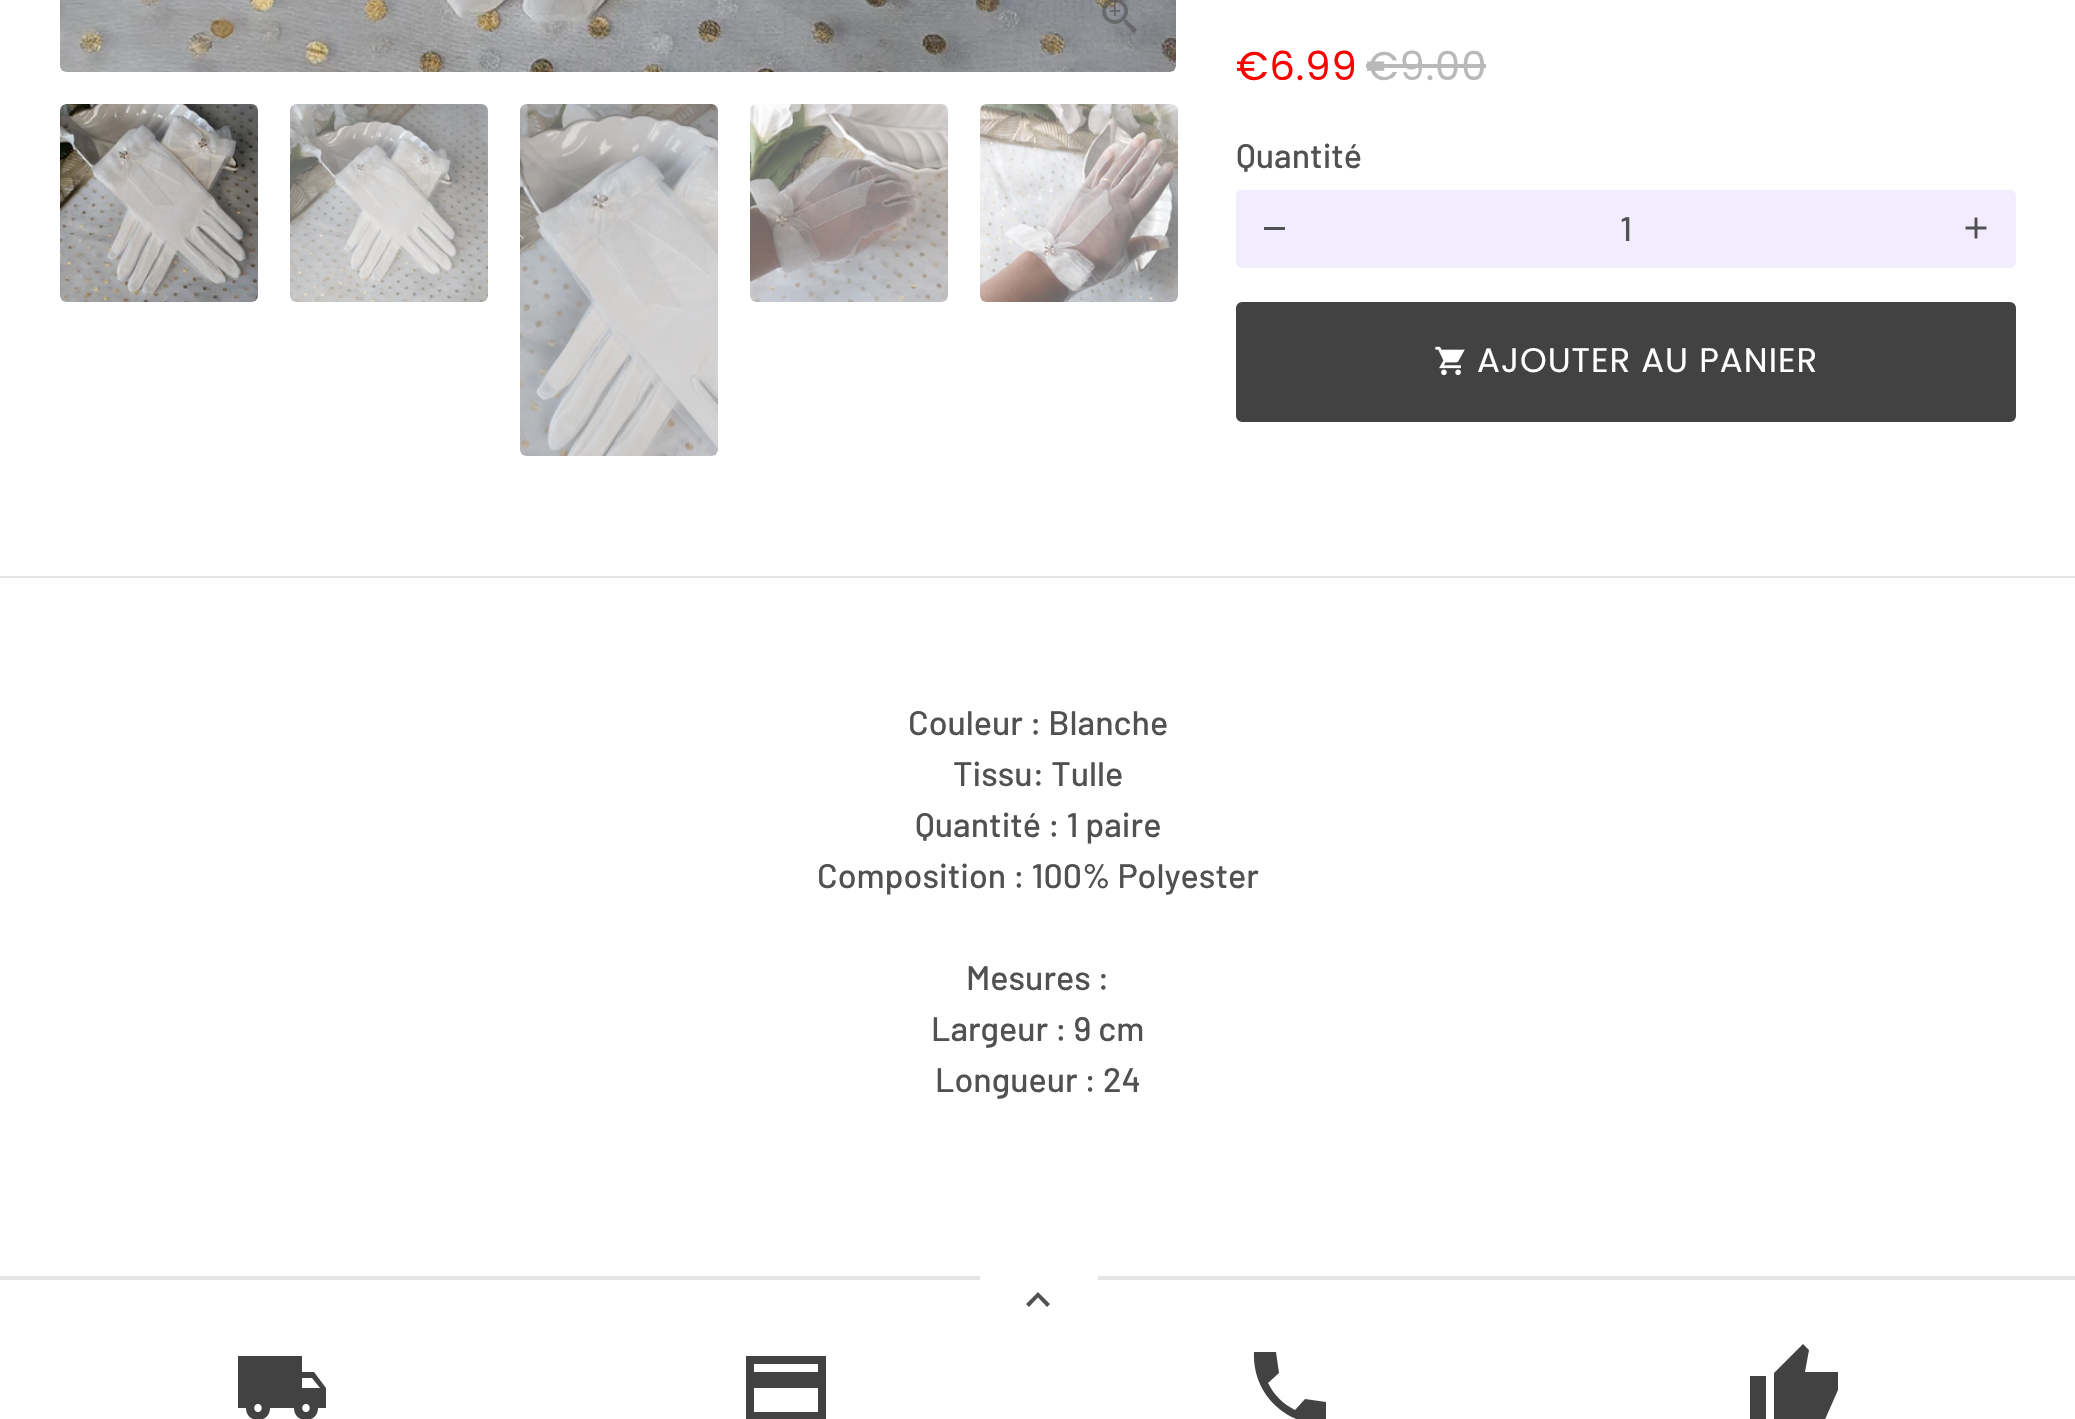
static SkFont makeFont(const char* family, int weight, float size, bool italic = false) {
  SkFontStyle style(weight, SkFontStyle::kNormal_Width,
    italic ? SkFontStyle::kItalic_Slant : SkFontStyle::kUpright_Slant);
  SkFont result(fontMgr->matchFamilyStyle(family, style), size);
  result.setSubpixel(true);
  return result;
}

static void text(SkCanvas* c, const char* s, float x, float y, const SkFont& font, SkColor color) {
  SkPaint ink(SkColor4f::FromColor(color));
  ink.setAntiAlias(true);
  c->drawString(s, x, y, font, ink);
}

static void spacedText(SkCanvas* c, const char* s, float x, float y, const SkFont& font, const SkPaint& ink, float letter, float word) {
  std::vector<SkGlyphID> glyphs(font.countText(s, strlen(s), SkTextEncoding::kUTF8));
  std::vector<float> xs(glyphs.size());
  font.textToGlyphs(s, strlen(s), SkTextEncoding::kUTF8, glyphs);
  font.getXPos(glyphs, xs, x);
  float extra = 0;
  for (size_t i = 0; i < glyphs.size(); i++) {
    xs[i] += extra;
    extra += letter + word * (glyphs[i] == font.unicharToGlyph(' '));
  }
  c->drawTextBlob(SkTextBlob::MakeFromPosHGlyphs(glyphs, xs, y, font), 0, 0, ink);
}

static void box(SkCanvas* c, float l, float t, float r, float b, SkColor color) {
  SkPaint ink(SkColor4f::FromColor(color));
  ink.setAntiAlias(true);
  c->drawRect(SkRect::MakeLTRB(l, t, r, b), ink);
}

static void roundBox(SkCanvas* c, float l, float t, float r, float b, float radius, SkColor color) {
  SkPaint ink(SkColor4f::FromColor(color));
  ink.setAntiAlias(true);
  c->drawRoundRect(SkRect::MakeLTRB(l, t, r, b), radius, radius, ink);
}

static void picture(SkCanvas* c, const char* path, float l, float t, float r, float b) {
  auto image = SkImages::DeferredFromEncodedData(SkData::MakeFromFileName(path));
  c->drawImageRect(image, SkRect::MakeLTRB(l, t, r, b), SkSamplingOptions());
}

void draw(SkCanvas* c) {
  SkPaint paint;
  paint.setAntiAlias(true);
  c->clear(0xffffffff);
  roundBox(c, 60, -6, 1176, 72, 6, 0xfff7f7f7);
  picture(c, "img_01.png", 60, 0, 1176, 72);
  picture(c, "img_02.png", 1102, 0, 1137, 33);
  roundBox(c, 60, 104, 258, 302, 6, 0xfff7f7f7);
  picture(c, "img_03.png", 60, 104, 258, 302);
  roundBox(c, 290, 104, 488, 302, 6, 0xfffafafa);
  picture(c, "img_04.png", 290, 104, 488, 302);
  roundBox(c, 520, 104, 718, 456, 6, 0xfffafafa);
  picture(c, "img_05.png", 520, 104, 718, 456);
  roundBox(c, 750, 104, 948, 302, 6, 0xfffafafa);
  picture(c, "img_06.png", 750, 104, 948, 302);
  roundBox(c, 980, 104, 1178, 302, 6, 0xfffafafa);
  picture(c, "img_07.png", 980, 104, 1178, 302);
  SkFont face1 = makeFont("Poppins", 400, 40);
  paint.setColor(0xffff0000);
  spacedText(c, "€6.99", 1236, 80, face1, paint, 1, 0);
  paint.setColor(0xffb9b9b9);
  spacedText(c, "€9.00", 1366, 80, face1, paint, 1, 0);
  box(c, 1366, 64, 1486, 68, 0xffb9b9b9);
  SkFont face2 = makeFont("Barlow", 500, 34);
  text(c, "Quantité", 1236, 168, face2, 0xff515151);
  paint.setColor(0xfff2ecff);
  c->drawRoundRect(SkRect::MakeLTRB(1237, 191, 2015, 267), 5, 5, paint);
  paint.setStyle(SkPaint::kStroke_Style);
  paint.setStrokeWidth(2);
  c->drawRoundRect(SkRect::MakeLTRB(1237, 191, 2015, 267), 5, 5, paint);
  roundBox(c, 1236, 190, 1314, 268, 6, 0xfff2ecff);
  box(c, 1264, 227, 1285, 230, 0xff515151);
  text(c, "1", 1620, 241, face2, 0xff515151);
  roundBox(c, 1938, 190, 2016, 268, 6, 0xfff2ecff);
  picture(c, "img_08.png", 1965, 217, 1987, 239);
  paint.setStyle(SkPaint::kFill_Style);
  paint.setColor(0xff424242);
  c->drawRoundRect(SkRect::MakeLTRB(1237, 303, 2015, 421), 5, 5, paint);
  paint.setStyle(SkPaint::kStroke_Style);
  c->drawRoundRect(SkRect::MakeLTRB(1237, 303, 2015, 421), 5, 5, paint);
  picture(c, "img_09.png", 1435, 346, 1465, 376);
  SkFont face3 = makeFont("Poppins", 400, 34);
  paint.setStyle(SkPaint::kFill_Style);
  paint.setColor(0xffffffff);
  spacedText(c, "AJOUTER AU PANIER", 1477, 372, face3, paint, 1, 0);
  box(c, 0, 576, 2075, 578, 0xffe5e5e5);
  text(c, "Couleur : Blanche", 908, 735, face2, 0xff515151);
  text(c, "Tissu: Tulle", 953, 786, face2, 0xff515151);
  text(c, "Quantité : 1 paire", 915, 837, face2, 0xff515151);
  text(c, "Composition : 100% Polyester", 817, 888, face2, 0xff515151);
  text(c, "Mesures :", 966, 990, face2, 0xff515151);
  text(c, "Largeur : 9 cm", 931, 1041, face2, 0xff515151);
  text(c, "Longueur : 24", 935, 1092, face2, 0xff515151);
  box(c, 0, 1276, 2075, 1280, 0xffe5e5e5);
  roundBox(c, 980, 1242, 1098, 1360, 6, 0xffffffff);
  paint.setColor(0xff515151);
  c->drawPath(SkPathBuilder().moveTo(1029, 1307).lineTo(1038, 1297.5f).lineTo(1047, 1307).lineTo(1050, 1304).lineTo(1038, 1292).lineTo(1026, 1304).close().detach(), paint);
  paint.setColor(0xff424242);
  c->drawPath(SkPathBuilder().moveTo(314, 1372).lineTo(302, 1372).lineTo(302, 1356).lineTo(238, 1356).lineTo(238, 1408).lineTo(246, 1408).cubicTo(246, 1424, 270, 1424, 270, 1408).lineTo(294, 1408).cubicTo(294, 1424, 318, 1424, 318, 1408).lineTo(326, 1408).lineTo(326, 1388).close().moveTo(258, 1412).cubicTo(253, 1412, 253, 1404, 258, 1404).cubicTo(263, 1404, 263, 1412, 258, 1412).close().moveTo(312, 1378).lineTo(320, 1388).lineTo(302, 1388).lineTo(302, 1378).close().moveTo(306, 1412).cubicTo(301, 1412, 301, 1404, 306, 1404).cubicTo(311, 1404, 311, 1412, 306, 1412).close().detach(), paint);
  c->drawPath(SkPathBuilder().moveTo(826, 1356).lineTo(746, 1356).lineTo(746, 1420).lineTo(826, 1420).close().moveTo(818, 1412).lineTo(754, 1412).lineTo(754, 1388).lineTo(818, 1388).close().moveTo(818, 1372).lineTo(754, 1372).lineTo(754, 1364).lineTo(818, 1364).close().detach(), paint);
  c->drawPath(SkPathBuilder().moveTo(1326, 1402).lineTo(1305, 1399).lineTo(1295, 1410).cubicTo(1283, 1404, 1274, 1395, 1268, 1383).lineTo(1279, 1373).lineTo(1276, 1352).lineTo(1254, 1352).cubicTo(1252, 1393, 1285, 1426, 1326, 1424).close().detach(), paint);
  c->drawPath(SkPathBuilder().moveTo(1803, 1344).lineTo(1774, 1373).lineTo(1774, 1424).lineTo(1823, 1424).lineTo(1838, 1390).lineTo(1838, 1372).lineTo(1805, 1372).lineTo(1809, 1350).close().moveTo(1750, 1376).lineTo(1766, 1376).lineTo(1766, 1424).lineTo(1750, 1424).close().detach(), paint);
}
